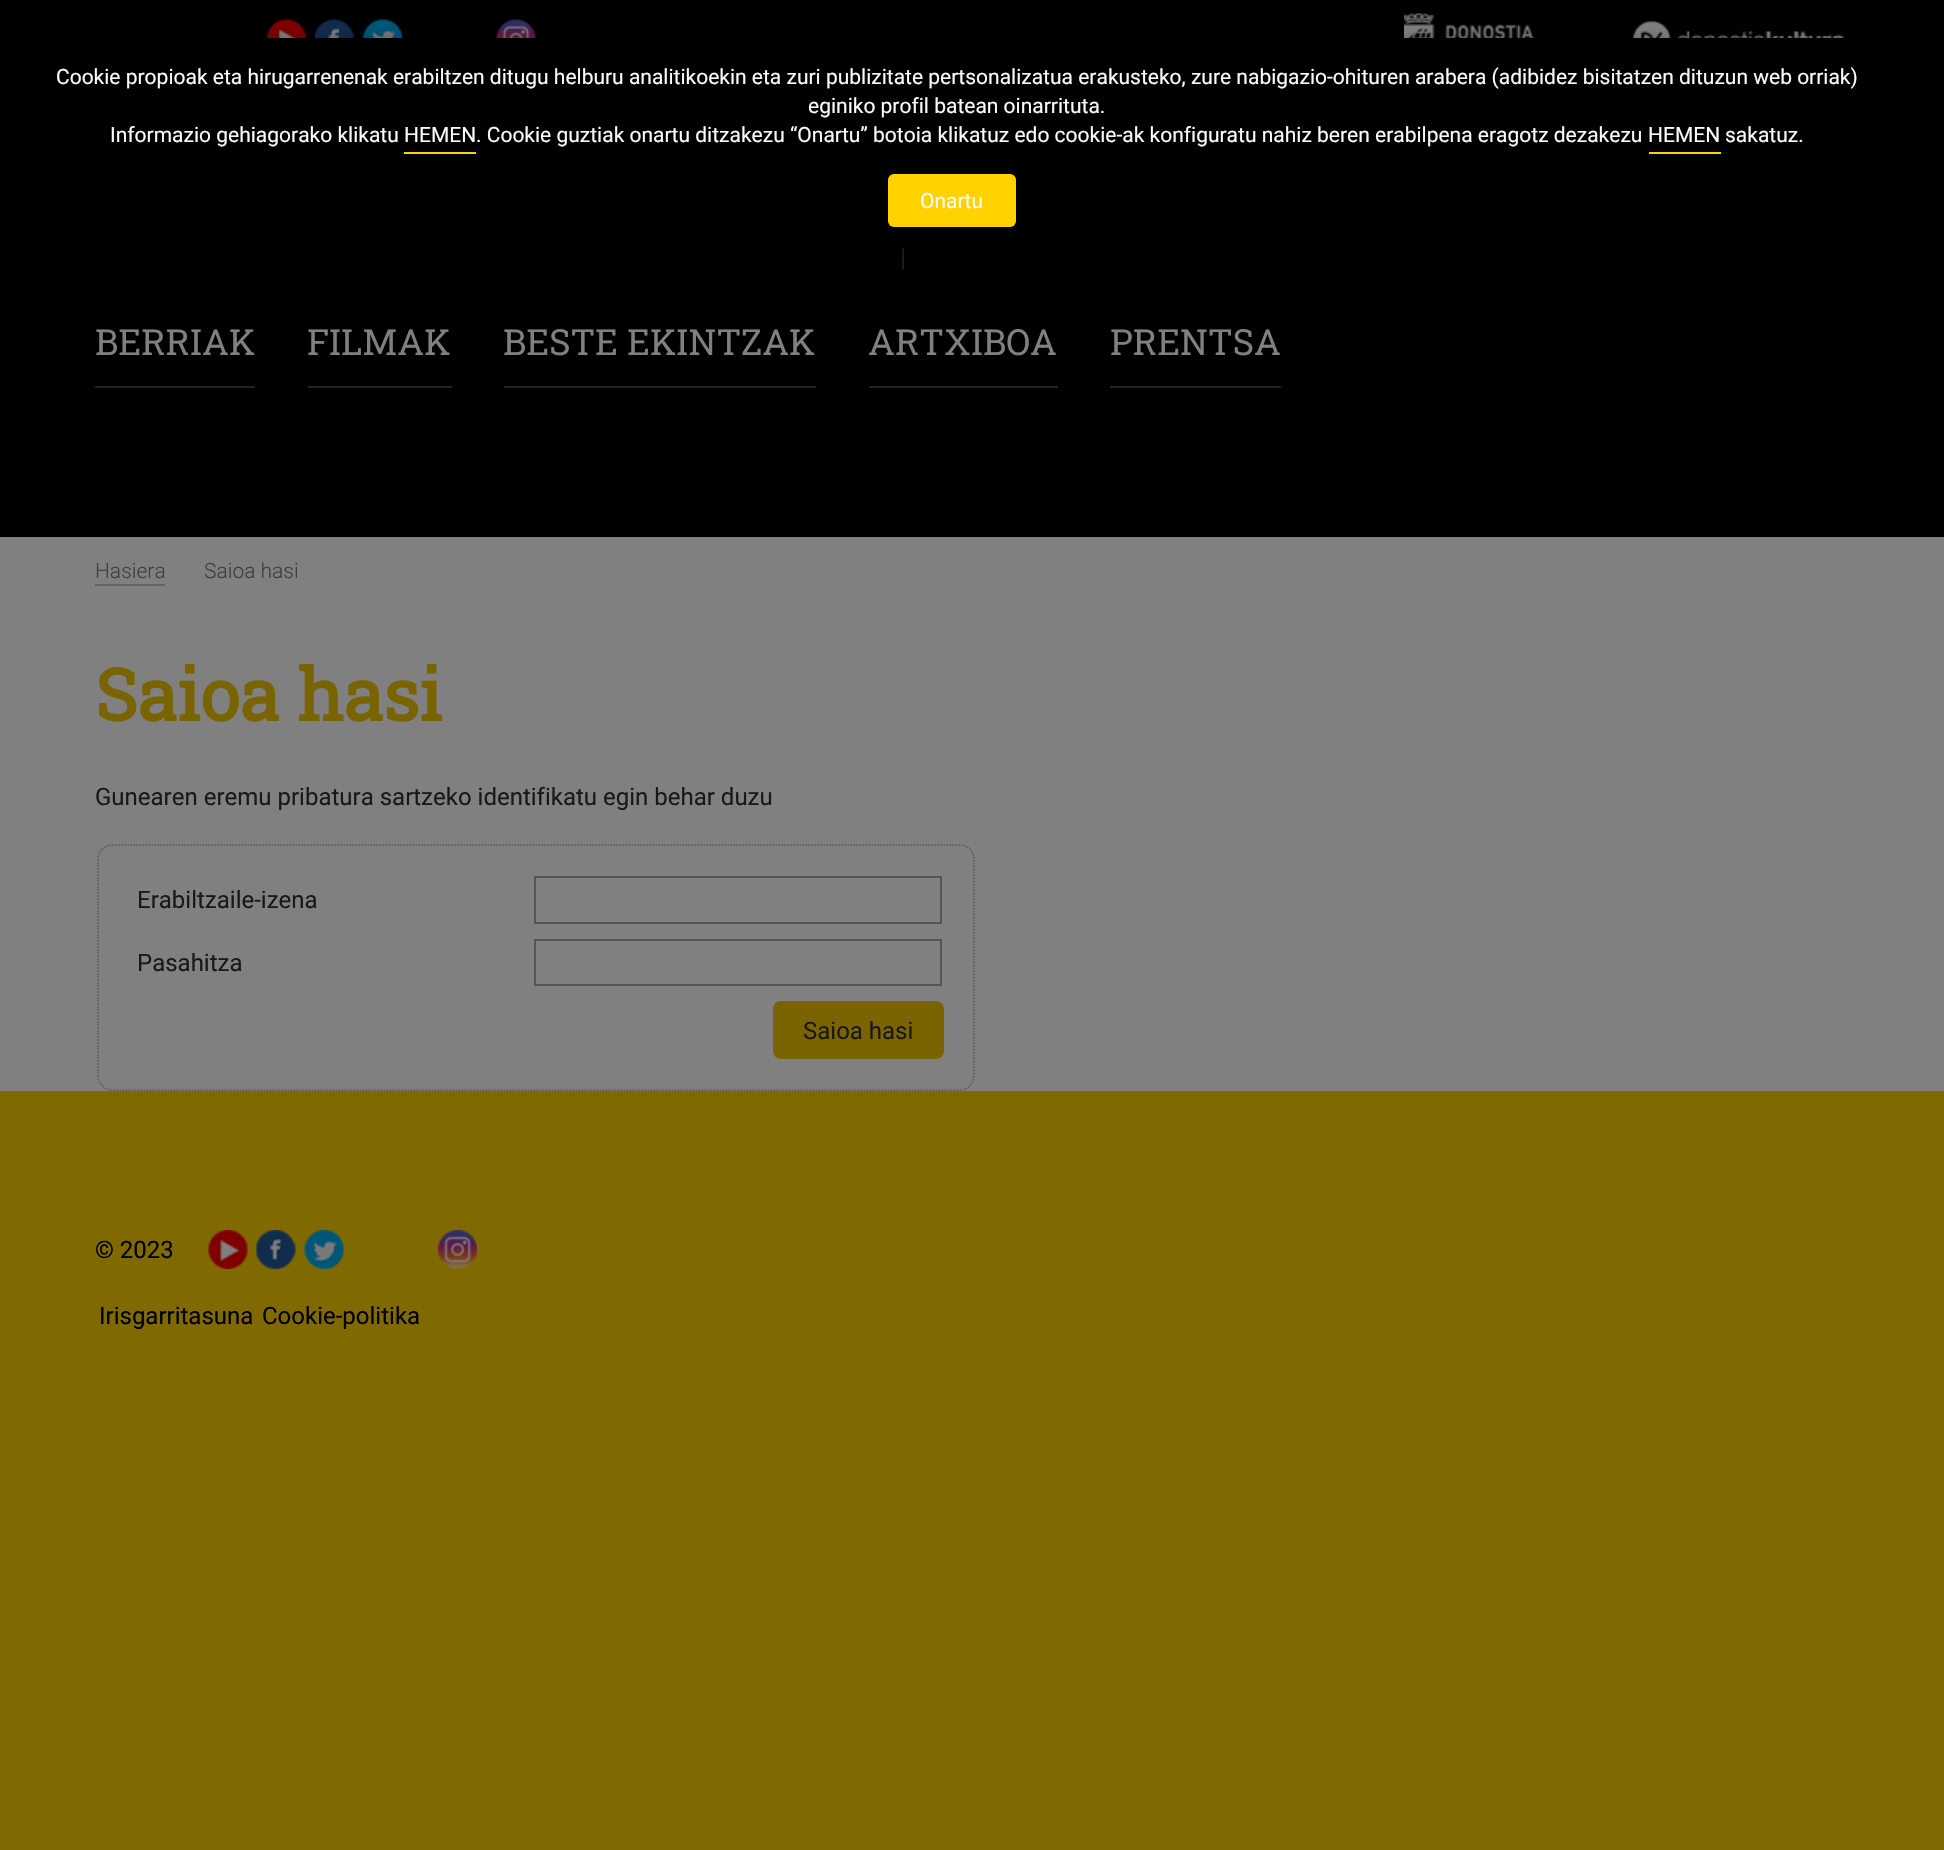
static SkFont makeFont(const char* family, int weight, float size, bool italic = false) {
  SkFontStyle style(weight, SkFontStyle::kNormal_Width,
    italic ? SkFontStyle::kItalic_Slant : SkFontStyle::kUpright_Slant);
  SkFont result(fontMgr->matchFamilyStyle(family, style), size);
  result.setSubpixel(true);
  return result;
}

static void text(SkCanvas* c, const char* s, float x, float y, const SkFont& font, SkColor color) {
  SkPaint ink(SkColor4f::FromColor(color));
  ink.setAntiAlias(true);
  c->drawString(s, x, y, font, ink);
}

static void box(SkCanvas* c, float l, float t, float r, float b, SkColor color) {
  SkPaint ink(SkColor4f::FromColor(color));
  ink.setAntiAlias(true);
  c->drawRect(SkRect::MakeLTRB(l, t, r, b), ink);
}

static void roundBox(SkCanvas* c, float l, float t, float r, float b, float radius, SkColor color) {
  SkPaint ink(SkColor4f::FromColor(color));
  ink.setAntiAlias(true);
  c->drawRoundRect(SkRect::MakeLTRB(l, t, r, b), radius, radius, ink);
}

static void picture(SkCanvas* c, const char* path, float l, float t, float r, float b) {
  auto image = SkImages::DeferredFromEncodedData(SkData::MakeFromFileName(path));
  c->drawImageRect(image, SkRect::MakeLTRB(l, t, r, b), SkSamplingOptions());
}

void draw(SkCanvas* c) {
  SkPaint paint;
  paint.setAntiAlias(true);
  c->clear(0xff806900);
  box(c, 0, 0, 1944, 537, 0xff000000);
  picture(c, "img_01.png", 267, 19, 306, 38);
  picture(c, "img_02.png", 315, 19, 354, 38);
  picture(c, "img_03.png", 363, 19, 402, 38);
  picture(c, "img_04.png", 496, 19, 536, 38);
  picture(c, "img_05.png", 1404, 13, 1534, 38);
  picture(c, "img_06.png", 1633, 21, 1844, 38);
  box(c, 902, 248, 904, 269, 0xff1b1b1b);
  paint.setColor(0x33000000);
  paint.setMaskFilter(SkMaskFilter::MakeBlur(kNormal_SkBlurStyle, 7.5f));
  c->drawRoundRect(SkRect::MakeLTRB(30, 38, 1884, 248), 6, 6, paint);
  paint.setMaskFilter(nullptr);
  SkFont face1 = makeFont("Roboto", 400, 21);
  text(c, "Cookie propioak eta hirugarrenenak erabiltzen ditugu helburu analitikoekin eta zuri publizitate pertsonalizatua erakusteko, zure nabigazio-ohituren arabera (adibidez bisitatzen dituzun web orriak)", 56, 84, face1, 0xfffafafa);
  text(c, "eginiko profil batean oinarrituta.", 808, 113, face1, 0xfffafafa);
  text(c, "Informazio gehiagorako klikatu", 110, 142, face1, 0xfffafafa);
  box(c, 404, 152, 476, 154, 0xffffd200);
  text(c, "HEMEN", 404, 142, face1, 0xfffafafa);
  text(c, ". Cookie guztiak onartu ditzakezu “Onartu” botoia klikatuz edo cookie-ak konfiguratu nahiz beren erabilpena eragotz dezakezu", 476, 142, face1, 0xfffafafa);
  box(c, 1649, 152, 1721, 154, 0xffffd200);
  text(c, "HEMEN", 1648, 142, face1, 0xfffafafa);
  text(c, "sakatuz.", 1725, 142, face1, 0xfffafafa);
  roundBox(c, 888, 174, 1016, 227, 6, 0xffffd200);
  text(c, "Onartu", 920, 208, face1, 0xfffafafa);
  box(c, 95, 386, 255, 388, 0xff222221);
  SkFont face2 = makeFont("Roboto Slab", 400, 36);
  text(c, "BERRIAK", 95, 355, face2, 0xff808080);
  box(c, 308, 386, 452, 388, 0xff222221);
  text(c, "FILMAK", 307, 355, face2, 0xff808080);
  box(c, 504, 386, 816, 388, 0xff222221);
  text(c, "BESTE EKINTZAK", 503, 355, face2, 0xff808080);
  box(c, 869, 386, 1058, 388, 0xff222221);
  text(c, "ARTXIBOA", 868, 355, face2, 0xff808080);
  box(c, 1110, 386, 1281, 388, 0xff222221);
  text(c, "PRENTSA", 1110, 355, face2, 0xff808080);
  box(c, 0, 537, 1944, 1091, 0xff808080);
  SkFont face3 = makeFont("Roboto", 300, 21);
  text(c, "Hasiera", 95, 578, face3, 0xff3f3f3f);
  box(c, 95, 584, 165, 586, 0xff646464);
  text(c, "Saioa hasi", 204, 578, face3, 0xff3f3f3f);
  SkFont face4 = makeFont("Roboto Slab", 700, 72);
  text(c, "Saioa hasi", 95, 721, face4, 0xff796401);
  SkFont face5 = makeFont("Roboto", 400, 24);
  text(c, "Gunearen eremu pribatura sartzeko identifikatu egin behar duzu", 95, 805, face5, 0xff191919);
  paint.setStyle(SkPaint::kStroke_Style);
  paint.setStrokeWidth(1.5f);
  paint.setColor(0xff555555);
  paint.setPathEffect(SkDashPathEffect::Make({{1.5f, 1.5f}}, 0));
  c->drawPath(SkPathBuilder().moveTo(112.5f, 845).lineTo(960, 845).cubicTo(968, 845, 974, 851.5f, 974, 859.5f).lineTo(974, 1075.5f).cubicTo(974, 1083.5f, 968, 1090, 960, 1090).lineTo(112.5f, 1090).cubicTo(104.5f, 1090, 98, 1083.5f, 98, 1075.5f).lineTo(98, 859.5f).cubicTo(98, 851.5f, 104.5f, 845, 112.5f, 845).close().detach(), paint);
  paint.setPathEffect(nullptr);
  text(c, "Erabiltzaile-izena", 137, 908, face5, 0xff191919);
  paint.setStrokeWidth(2);
  c->drawRect(SkRect::MakeLTRB(535, 877, 941, 923), paint);
  text(c, "Pasahitza", 137, 971, face5, 0xff191919);
  c->drawRect(SkRect::MakeLTRB(535, 940, 941, 985), paint);
  roundBox(c, 773, 1001, 944, 1059, 8, 0xff796401);
  text(c, "Saioa hasi", 803, 1039, face5, 0xff191919);
  text(c, "© 2023", 95, 1258, face5, 0xff000000);
  picture(c, "img_07.png", 208, 1230, 248, 1269);
  picture(c, "img_08.png", 256, 1230, 296, 1269);
  picture(c, "img_09.png", 304, 1230, 344, 1269);
  picture(c, "img_10.png", 438, 1230, 477, 1269);
  text(c, "Irisgarritasuna", 99, 1324, face5, 0xff000000);
  text(c, "Cookie-politika", 262, 1324, face5, 0xff000000);
}
